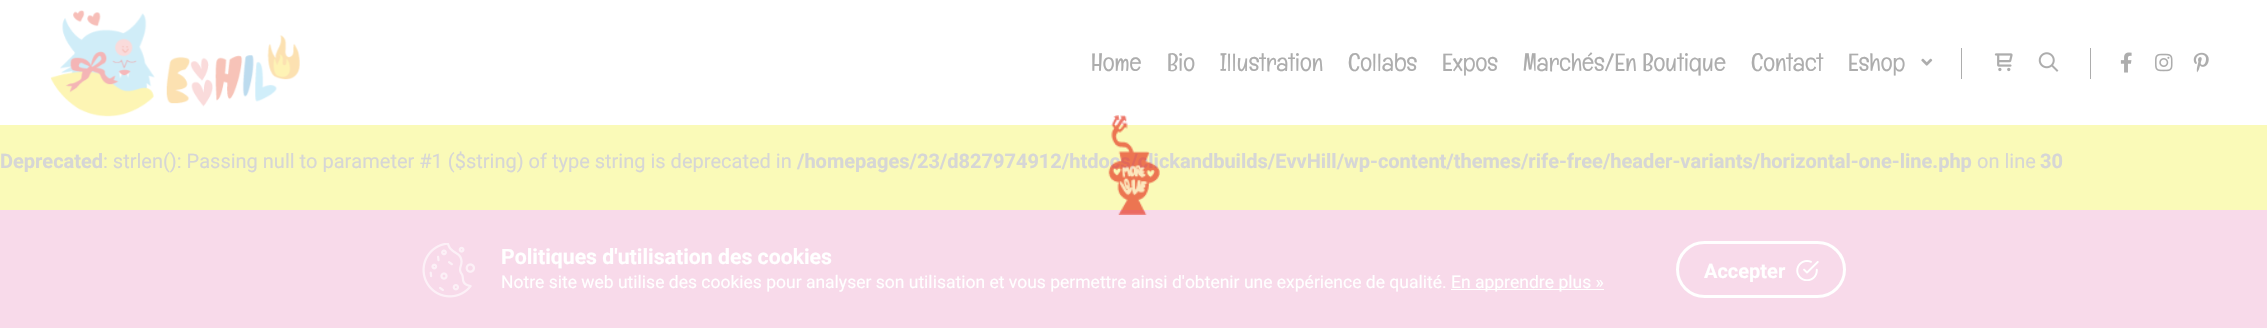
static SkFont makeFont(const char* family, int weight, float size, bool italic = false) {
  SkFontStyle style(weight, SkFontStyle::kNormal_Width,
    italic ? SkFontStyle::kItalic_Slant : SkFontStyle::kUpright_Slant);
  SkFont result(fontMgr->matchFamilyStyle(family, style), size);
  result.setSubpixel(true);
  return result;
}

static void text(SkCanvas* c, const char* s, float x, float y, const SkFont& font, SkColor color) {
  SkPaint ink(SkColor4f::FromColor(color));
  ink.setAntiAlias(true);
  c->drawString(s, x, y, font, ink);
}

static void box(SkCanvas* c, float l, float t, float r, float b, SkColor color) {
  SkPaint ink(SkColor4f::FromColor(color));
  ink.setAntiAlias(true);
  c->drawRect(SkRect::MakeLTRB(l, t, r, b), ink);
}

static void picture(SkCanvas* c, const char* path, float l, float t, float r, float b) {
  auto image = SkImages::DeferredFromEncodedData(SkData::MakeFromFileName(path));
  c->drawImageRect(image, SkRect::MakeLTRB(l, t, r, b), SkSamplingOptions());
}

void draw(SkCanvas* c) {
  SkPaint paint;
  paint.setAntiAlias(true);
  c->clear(0xfffafab8);
  box(c, 0, 0, 2267, 125, 0xffffffff);
  picture(c, "img_01.png", 50, 10, 300, 117);
  SkFont face1 = makeFont("Englebert", 400, 25);
  text(c, "Home", 1091, 71, face1, 0xffadadad);
  text(c, "Bio", 1167, 71, face1, 0xffadadad);
  text(c, "Illustration", 1220, 71, face1, 0xffadadad);
  text(c, "Collabs", 1348, 71, face1, 0xffadadad);
  text(c, "Expos", 1442, 71, face1, 0xffadadad);
  text(c, "Marchés/En Boutique", 1523, 71, face1, 0xffadadad);
  text(c, "Contact", 1751, 71, face1, 0xffadadad);
  text(c, "Eshop", 1848, 71, face1, 0xffadadad);
  picture(c, "img_02.png", 1921, 58, 1933, 66);
  box(c, 1961, 48, 1962, 79, 0xffadadad);
  picture(c, "img_03.png", 1994, 53, 2013, 72);
  picture(c, "img_04.png", 2038, 52, 2059, 72);
  box(c, 2090, 48, 2091, 79, 0xffadadad);
  picture(c, "img_05.png", 2120, 52, 2132, 73);
  picture(c, "img_06.png", 2155, 53, 2173, 72);
  picture(c, "img_07.png", 2193, 52, 2209, 73);
  SkFont face2 = makeFont("Roboto", 400, 20);
  text(c, ": strlen(): Passing null to parameter #1 ($string) of type string is deprecated in", 103, 168, face2, 0xffd6d6d6);
  SkFont face3 = makeFont("Roboto", 700, 20);
  text(c, "/homepages/23/d827974912/htdocs/clickandbuilds/EvvHill/wp-content/themes/rife-free/header-variants/horizontal-one-line.php", 797, 168, face3, 0xffd6d6d6);
  box(c, 0, 210, 2267, 328, 0xfff8daea);
  picture(c, "img_08.png", 1108, 115, 1160, 215);
  text(c, "Deprecated", 0, 168, face3, 0xffd6d6d6);
  text(c, "on line", 1977, 168, face2, 0xffd6d6d6);
  text(c, "30", 2040, 168, face3, 0xffd6d6d6);
  picture(c, "img_09.png", 422, 243, 475, 298);
  SkFont face4 = makeFont("Roboto", 700, 21.25f);
  text(c, "Politiques d'utilisation des cookies", 501, 264, face4, 0xffffffff);
  SkFont face5 = makeFont("Roboto", 400, 17.5f);
  text(c, "Notre site web utilise des cookies pour analyser son utilisation et vous permettre ainsi d'obtenir une expérience de qualité.", 501, 288, face5, 0xffffffff);
  box(c, 1451, 289, 1604, 290, 0xffffffff);
  text(c, "En apprendre plus »", 1451, 288, face5, 0xffffffff);
  paint.setStyle(SkPaint::kStroke_Style);
  paint.setStrokeWidth(3);
  paint.setColor(0xffffffff);
  c->drawRoundRect(SkRect::MakeLTRB(1677.5f, 242.5f, 1844.5f, 296.5f), 27, 27, paint);
  text(c, "Accepter", 1704, 278, face3, 0xffffffff);
  picture(c, "img_10.png", 1796, 260, 1819, 281);
}
